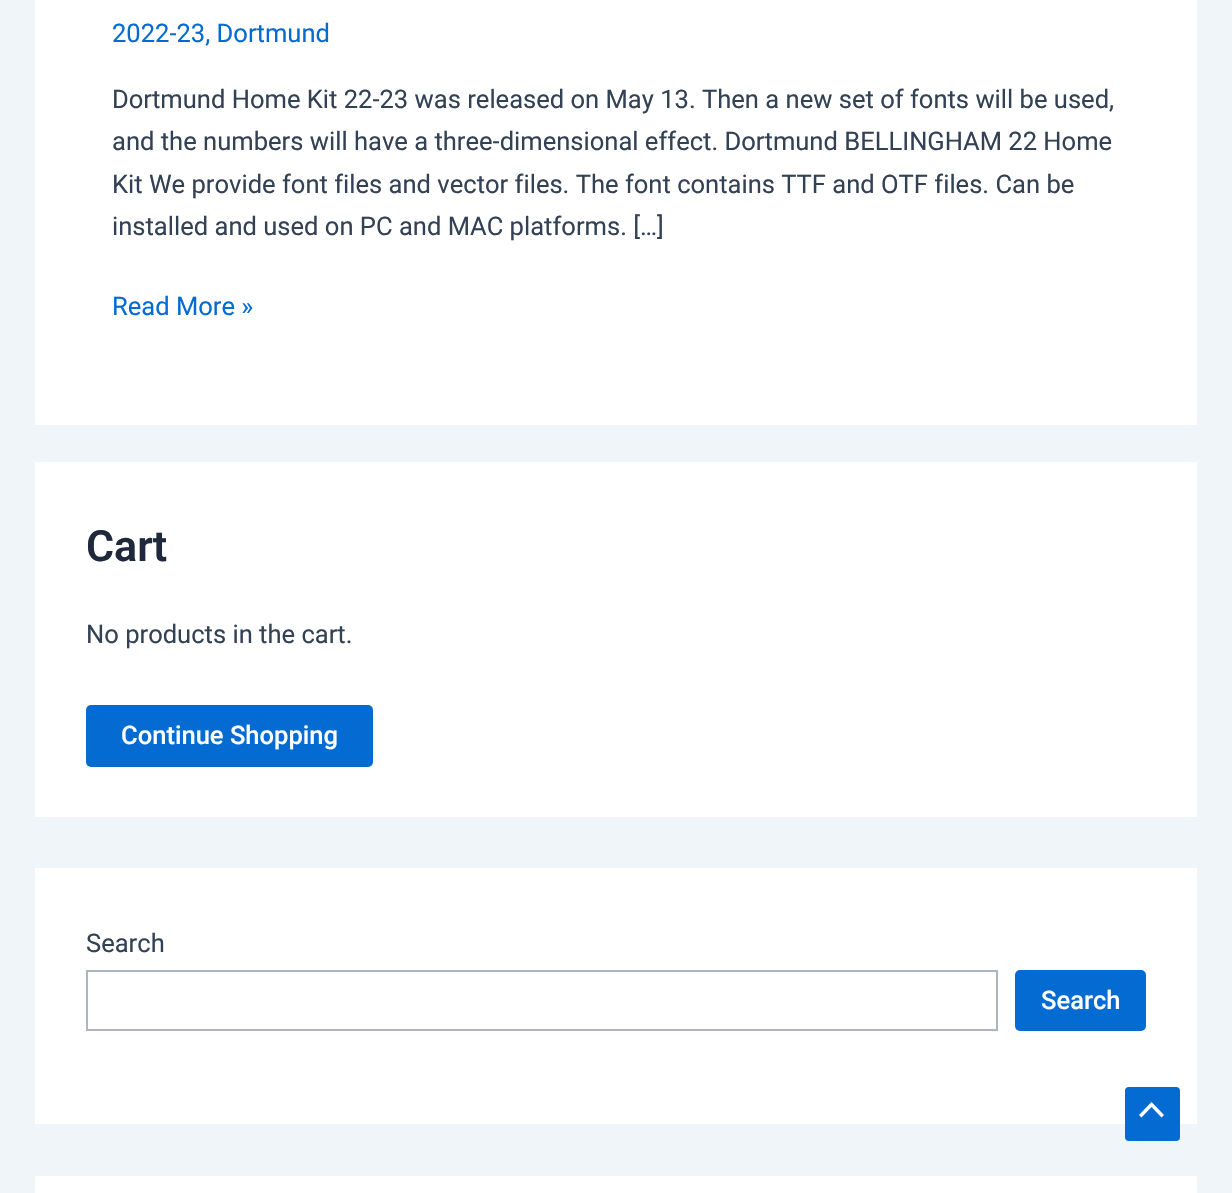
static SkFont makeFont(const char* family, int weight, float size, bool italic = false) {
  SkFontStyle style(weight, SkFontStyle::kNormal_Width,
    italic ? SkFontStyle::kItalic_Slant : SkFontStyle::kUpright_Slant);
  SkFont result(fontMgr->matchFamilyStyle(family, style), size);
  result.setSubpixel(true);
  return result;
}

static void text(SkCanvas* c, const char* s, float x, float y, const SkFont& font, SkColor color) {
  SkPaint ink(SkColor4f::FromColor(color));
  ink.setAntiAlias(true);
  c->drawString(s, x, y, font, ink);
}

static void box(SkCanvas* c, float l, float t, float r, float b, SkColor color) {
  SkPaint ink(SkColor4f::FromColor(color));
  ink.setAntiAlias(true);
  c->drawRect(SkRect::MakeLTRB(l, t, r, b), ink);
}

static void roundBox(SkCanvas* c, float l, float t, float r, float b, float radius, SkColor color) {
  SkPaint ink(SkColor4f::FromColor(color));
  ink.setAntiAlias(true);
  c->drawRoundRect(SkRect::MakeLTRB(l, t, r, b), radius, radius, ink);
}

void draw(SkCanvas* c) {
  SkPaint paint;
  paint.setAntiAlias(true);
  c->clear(0xfff0f5fa);
  box(c, 35, 0, 1197, 425, 0xffffffff);
  SkFont face1 = makeFont("Roboto", 400, 25.55f);
  text(c, "2022-23, Dortmund", 112, 42, face1, 0xff046bd2);
  text(c, "Dortmund Home Kit 22-23 was released on May 13. Then a new set of fonts will be used,", 112, 108, face1, 0xff334155);
  text(c, "and the numbers will have a three-dimensional effect. Dortmund BELLINGHAM 22 Home", 112, 150, face1, 0xff334155);
  text(c, "Kit We provide font files and vector files. The font contains TTF and OTF files. Can be", 112, 193, face1, 0xff334155);
  text(c, "installed and used on PC and MAC platforms. […]", 112, 235, face1, 0xff334155);
  text(c, "Read More »", 112, 315, face1, 0xff046bd2);
  box(c, 35, 462, 1197, 817, 0xffffffff);
  SkFont face2 = makeFont("Roboto", 600, 43);
  text(c, "Cart", 86, 561, face2, 0xff1e293b);
  text(c, "No products in the cart.", 86, 643, face1, 0xff334155);
  roundBox(c, 86, 705, 373, 767, 5, 0xff046bd2);
  SkFont face3 = makeFont("Roboto", 500, 25.55f);
  text(c, "Continue Shopping", 121, 744, face3, 0xffffffff);
  box(c, 35, 868, 1197, 1124, 0xffffffff);
  text(c, "Search", 86, 952, face1, 0xff334155);
  paint.setStyle(SkPaint::kStroke_Style);
  paint.setStrokeWidth(2);
  paint.setColor(0xffadb6be);
  c->drawRect(SkRect::MakeLTRB(87, 971, 997, 1030), paint);
  roundBox(c, 1015, 970, 1146, 1031, 5, 0xff046bd2);
  text(c, "Search", 1041, 1009, face3, 0xffffffff);
  box(c, 35, 1176, 1197, 1193, 0xffffffff);
  roundBox(c, 1125, 1087, 1180, 1141, 4, 0xff046bd2);
  paint.setStyle(SkPaint::kFill_Style);
  paint.setColor(0xffffffff);
  c->drawPath(SkPathBuilder().moveTo(1164, 1115).lineTo(1151.5f, 1102).lineTo(1139, 1115).lineTo(1141.5f, 1117.5f).lineTo(1151.5f, 1107).lineTo(1161.5f, 1117.5f).close().detach(), paint);
}
